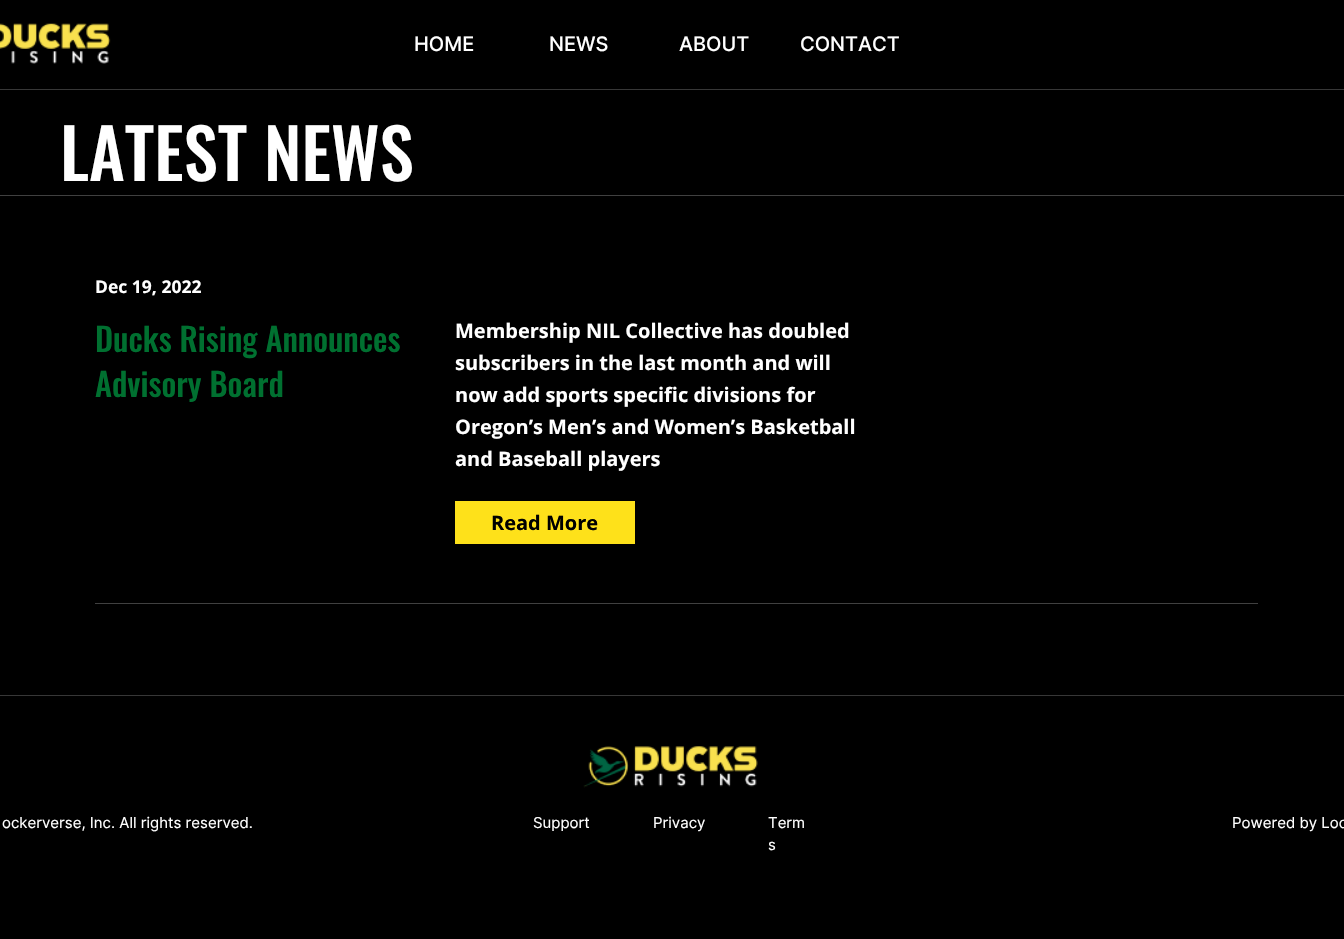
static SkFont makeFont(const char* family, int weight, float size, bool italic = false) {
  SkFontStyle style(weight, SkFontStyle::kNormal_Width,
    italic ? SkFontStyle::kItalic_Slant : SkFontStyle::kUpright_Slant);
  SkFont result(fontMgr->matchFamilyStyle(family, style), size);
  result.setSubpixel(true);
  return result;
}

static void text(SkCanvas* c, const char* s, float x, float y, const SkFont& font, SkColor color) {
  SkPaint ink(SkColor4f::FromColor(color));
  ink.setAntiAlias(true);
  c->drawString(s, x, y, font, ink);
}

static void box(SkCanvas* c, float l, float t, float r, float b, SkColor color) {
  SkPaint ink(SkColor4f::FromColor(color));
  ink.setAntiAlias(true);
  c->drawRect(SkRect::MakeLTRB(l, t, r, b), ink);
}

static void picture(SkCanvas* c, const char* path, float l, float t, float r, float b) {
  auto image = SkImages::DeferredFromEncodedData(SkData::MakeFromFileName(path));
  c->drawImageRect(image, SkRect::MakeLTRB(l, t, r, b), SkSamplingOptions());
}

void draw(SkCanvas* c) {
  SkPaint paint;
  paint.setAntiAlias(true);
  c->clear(0xff000000);
  picture(c, "img_01.png", 0, 23, 111, 64);
  SkFont face1 = makeFont("Inter", 500, 20);
  text(c, "HOME", 414, 51, face1, 0xffffffff);
  text(c, "NEWS", 549, 51, face1, 0xffffffff);
  text(c, "ABOUT", 679, 51, face1, 0xffffffff);
  text(c, "CONTACT", 800, 51, face1, 0xffffffff);
  box(c, 0, 89, 1344, 90, 0xff373737);
  SkFont face2 = makeFont("Oswald", 500, 68.75f);
  text(c, "LATEST NEWS", 60, 181, face2, 0xffffffff);
  box(c, 0, 195, 1344, 196, 0xff404040);
  SkFont face3 = makeFont("Open Sans", 700, 17.5f);
  text(c, "Dec 19, 2022", 95, 293, face3, 0xffffffff);
  SkFont face4 = makeFont("Oswald", 500, 32.5f);
  text(c, "Ducks Rising Announces", 95, 352, face4, 0xff007030);
  text(c, "Advisory Board", 95, 397, face4, 0xff007030);
  SkFont face5 = makeFont("Open Sans", 700, 20);
  text(c, "Membership NIL Collective has doubled", 455, 338, face5, 0xffffffff);
  text(c, "subscribers in the last month and will", 455, 370, face5, 0xffffffff);
  text(c, "now add sports specific divisions for", 455, 402, face5, 0xffffffff);
  text(c, "Oregon’s Men’s and Women’s Basketball", 455, 434, face5, 0xffffffff);
  text(c, "and Baseball players", 455, 466, face5, 0xffffffff);
  box(c, 455, 501, 635, 544, 0xfffee11a);
  text(c, "Read More", 491, 530, face5, 0xff000000);
  box(c, 95, 603, 1258, 604, 0xff404040);
  box(c, 0, 695, 1344, 696, 0xff373737);
  picture(c, "img_02.png", 583, 746, 758, 788);
  SkFont face6 = makeFont("Inter", 400, 15);
  text(c, "ockerverse, Inc. All rights reserved.", 2, 828, face6, 0xffffffff);
  text(c, "Support", 533, 828, face6, 0xffffffff);
  text(c, "Privacy", 653, 828, face6, 0xffffffff);
  text(c, "Term", 768, 828, face6, 0xffffffff);
  text(c, "s", 768, 850, face6, 0xffffffff);
  text(c, "Powered by Loc", 1232, 828, face6, 0xffffffff);
}
